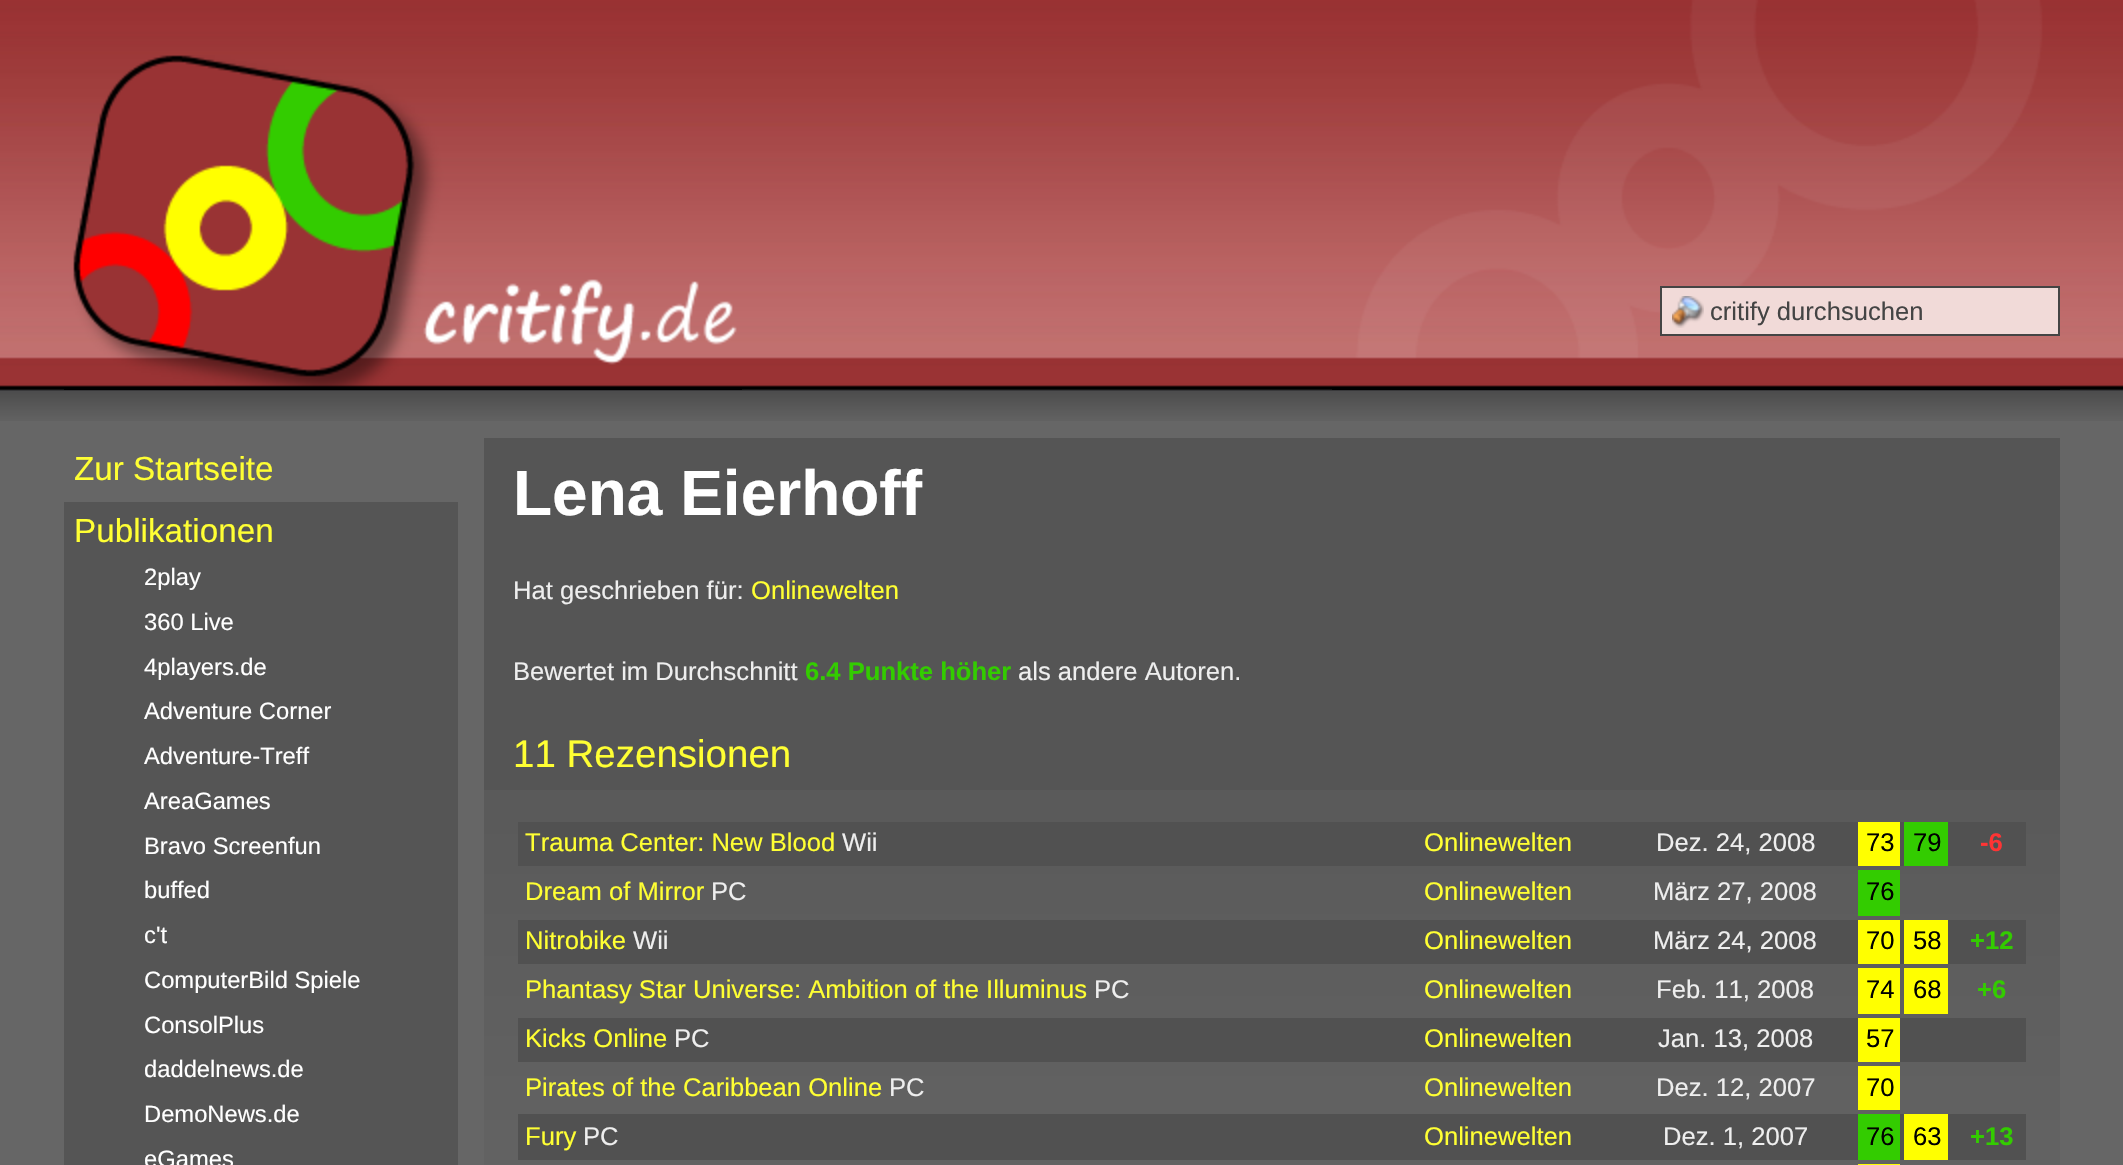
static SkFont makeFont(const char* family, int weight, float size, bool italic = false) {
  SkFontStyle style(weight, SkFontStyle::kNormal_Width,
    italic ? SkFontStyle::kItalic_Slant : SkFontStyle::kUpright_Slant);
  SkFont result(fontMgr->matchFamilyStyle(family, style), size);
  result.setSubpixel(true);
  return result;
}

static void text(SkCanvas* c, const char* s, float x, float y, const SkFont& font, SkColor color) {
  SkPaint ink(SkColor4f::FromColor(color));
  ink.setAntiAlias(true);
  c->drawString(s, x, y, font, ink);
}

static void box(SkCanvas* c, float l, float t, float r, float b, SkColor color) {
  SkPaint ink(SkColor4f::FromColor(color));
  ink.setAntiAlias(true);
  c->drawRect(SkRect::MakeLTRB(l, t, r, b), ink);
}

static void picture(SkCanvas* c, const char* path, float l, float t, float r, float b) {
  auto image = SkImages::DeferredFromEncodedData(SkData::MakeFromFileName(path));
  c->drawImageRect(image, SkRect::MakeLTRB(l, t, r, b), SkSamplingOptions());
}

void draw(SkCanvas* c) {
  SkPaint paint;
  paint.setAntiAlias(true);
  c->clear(0xff666666);
  picture(c, "img_01.png", 0, 0, 2123, 421);
  picture(c, "img_02.png", 64, 55, 742, 390);
  picture(c, "img_03.png", 1332, 0, 2060, 390);
  box(c, 1662, 288, 2058, 334, 0xfff1dad8);
  picture(c, "img_04.png", 1672, 296, 1704, 328);
  paint.setStyle(SkPaint::kStroke_Style);
  paint.setStrokeWidth(2);
  paint.setColor(0xff444444);
  c->drawRect(SkRect::MakeLTRB(1661, 287, 2059, 335), paint);
  SkFont face1 = makeFont("Liberation Sans", 400, 25.6f);
  text(c, "critify durchsuchen", 1710, 320, face1, 0xff444444);
  SkFont face2 = makeFont("Liberation Sans", 400, 33.25f);
  text(c, "Zur Startseite", 74, 480, face2, 0xffffff33);
  box(c, 64, 502, 458, 1165, 0xff555555);
  text(c, "Publikationen", 74, 542, face2, 0xffffff33);
  SkFont face3 = makeFont("Liberation Sans", 400, 23.75f);
  text(c, "2play", 144, 585, face3, 0xffffffff);
  text(c, "360 Live", 144, 630, face3, 0xffffffff);
  text(c, "4players.de", 144, 675, face3, 0xffffffff);
  text(c, "Adventure Corner", 144, 719, face3, 0xffffffff);
  text(c, "Adventure-Treff", 144, 764, face3, 0xffffffff);
  text(c, "AreaGames", 144, 809, face3, 0xffffffff);
  text(c, "Bravo Screenfun", 144, 854, face3, 0xffffffff);
  text(c, "buffed", 144, 898, face3, 0xffffffff);
  text(c, "c't", 144, 943, face3, 0xffffffff);
  text(c, "ComputerBild Spiele", 144, 988, face3, 0xffffffff);
  text(c, "ConsolPlus", 144, 1033, face3, 0xffffffff);
  text(c, "daddelnews.de", 144, 1077, face3, 0xffffffff);
  text(c, "DemoNews.de", 144, 1122, face3, 0xffffffff);
  text(c, "eGames", 144, 1167, face3, 0xffffffff);
  box(c, 484, 438, 2060, 790, 0xff555555);
  picture(c, "img_05.png", 484, 790, 2060, 1165);
  SkFont face4 = makeFont("Liberation Sans", 700, 64);
  text(c, "Lena Eierhoff", 513, 515, face4, 0xffffffff);
  text(c, "Hat geschrieben für:", 513, 599, face1, 0xffeeeeee);
  text(c, "Onlinewelten", 751, 599, face1, 0xffffff33);
  text(c, "Bewertet im Durchschnitt", 513, 680, face1, 0xffeeeeee);
  SkFont face5 = makeFont("Liberation Sans", 700, 25.6f);
  text(c, "6.4 Punkte höher", 805, 680, face5, 0xff33cc00);
  text(c, "als andere Autoren.", 1018, 680, face1, 0xffeeeeee);
  SkFont face6 = makeFont("Liberation Sans", 400, 38.5f);
  text(c, "11 Rezensionen", 513, 767, face6, 0xffffff33);
  box(c, 518, 822, 2026, 866, 0xff515151);
  text(c, "Trauma Center: New Blood", 525, 851, face1, 0xffffff33);
  text(c, "Wii", 842, 851, face1, 0xffeeeeee);
  text(c, "Onlinewelten", 1424, 851, face1, 0xffffff33);
  text(c, "Dez. 24, 2008", 1656, 851, face1, 0xffeeeeee);
  box(c, 1858, 822, 1900, 866, 0xffffff00);
  text(c, "73", 1866, 851, face1, 0xff000000);
  box(c, 1904, 822, 1948, 866, 0xff33cc00);
  text(c, "79", 1913, 851, face1, 0xff000000);
  text(c, "-6", 1980, 851, face5, 0xffff3434);
  text(c, "Dream of Mirror", 525, 900, face1, 0xffffff33);
  text(c, "PC", 711, 900, face1, 0xffeeeeee);
  text(c, "Onlinewelten", 1424, 900, face1, 0xffffff33);
  text(c, "März 27, 2008", 1653, 900, face1, 0xffeeeeee);
  box(c, 1858, 870, 1900, 916, 0xff33cc00);
  text(c, "76", 1866, 900, face1, 0xff000000);
  box(c, 518, 920, 2026, 964, 0xff515151);
  text(c, "Nitrobike", 525, 949, face1, 0xffffff33);
  text(c, "Wii", 633, 949, face1, 0xffeeeeee);
  text(c, "Onlinewelten", 1424, 949, face1, 0xffffff33);
  text(c, "März 24, 2008", 1653, 949, face1, 0xffeeeeee);
  box(c, 1858, 920, 1900, 964, 0xffffff00);
  text(c, "70", 1866, 949, face1, 0xff000000);
  box(c, 1904, 920, 1948, 964, 0xffffff00);
  text(c, "58", 1913, 949, face1, 0xff000000);
  text(c, "+12", 1970, 949, face5, 0xff33cc00);
  text(c, "Phantasy Star Universe: Ambition of the Illuminus", 525, 998, face1, 0xffffff33);
  text(c, "PC", 1094, 998, face1, 0xffeeeeee);
  text(c, "Onlinewelten", 1424, 998, face1, 0xffffff33);
  text(c, "Feb. 11, 2008", 1656, 998, face1, 0xffeeeeee);
  box(c, 1858, 968, 1900, 1014, 0xffffff00);
  text(c, "74", 1866, 998, face1, 0xff000000);
  box(c, 1904, 968, 1948, 1014, 0xffffff00);
  text(c, "68", 1913, 998, face1, 0xff000000);
  text(c, "+6", 1977, 998, face5, 0xff33cc00);
  box(c, 518, 1018, 2026, 1062, 0xff515151);
  text(c, "Kicks Online", 525, 1047, face1, 0xffffff33);
  text(c, "PC", 674, 1047, face1, 0xffeeeeee);
  text(c, "Onlinewelten", 1424, 1047, face1, 0xffffff33);
  text(c, "Jan. 13, 2008", 1658, 1047, face1, 0xffeeeeee);
  box(c, 1858, 1018, 1900, 1062, 0xffffff00);
  text(c, "57", 1866, 1047, face1, 0xff000000);
  text(c, "Pirates of the Caribbean Online", 525, 1096, face1, 0xffffff33);
  text(c, "PC", 889, 1096, face1, 0xffeeeeee);
  text(c, "Onlinewelten", 1424, 1096, face1, 0xffffff33);
  text(c, "Dez. 12, 2007", 1656, 1096, face1, 0xffeeeeee);
  box(c, 1858, 1066, 1900, 1110, 0xffffff00);
  text(c, "70", 1866, 1096, face1, 0xff000000);
  box(c, 518, 1114, 2026, 1160, 0xff515151);
  text(c, "Fury", 525, 1145, face1, 0xffffff33);
  text(c, "PC", 583, 1145, face1, 0xffeeeeee);
  text(c, "Onlinewelten", 1424, 1145, face1, 0xffffff33);
  text(c, "Dez. 1, 2007", 1663, 1145, face1, 0xffeeeeee);
  box(c, 1858, 1114, 1900, 1160, 0xff33cc00);
  text(c, "76", 1866, 1145, face1, 0xff000000);
  box(c, 1904, 1114, 1948, 1160, 0xffffff00);
  text(c, "63", 1913, 1145, face1, 0xff000000);
  text(c, "+13", 1970, 1145, face5, 0xff33cc00);
  box(c, 1858, 1164, 1900, 1165, 0xffffff00);
}
